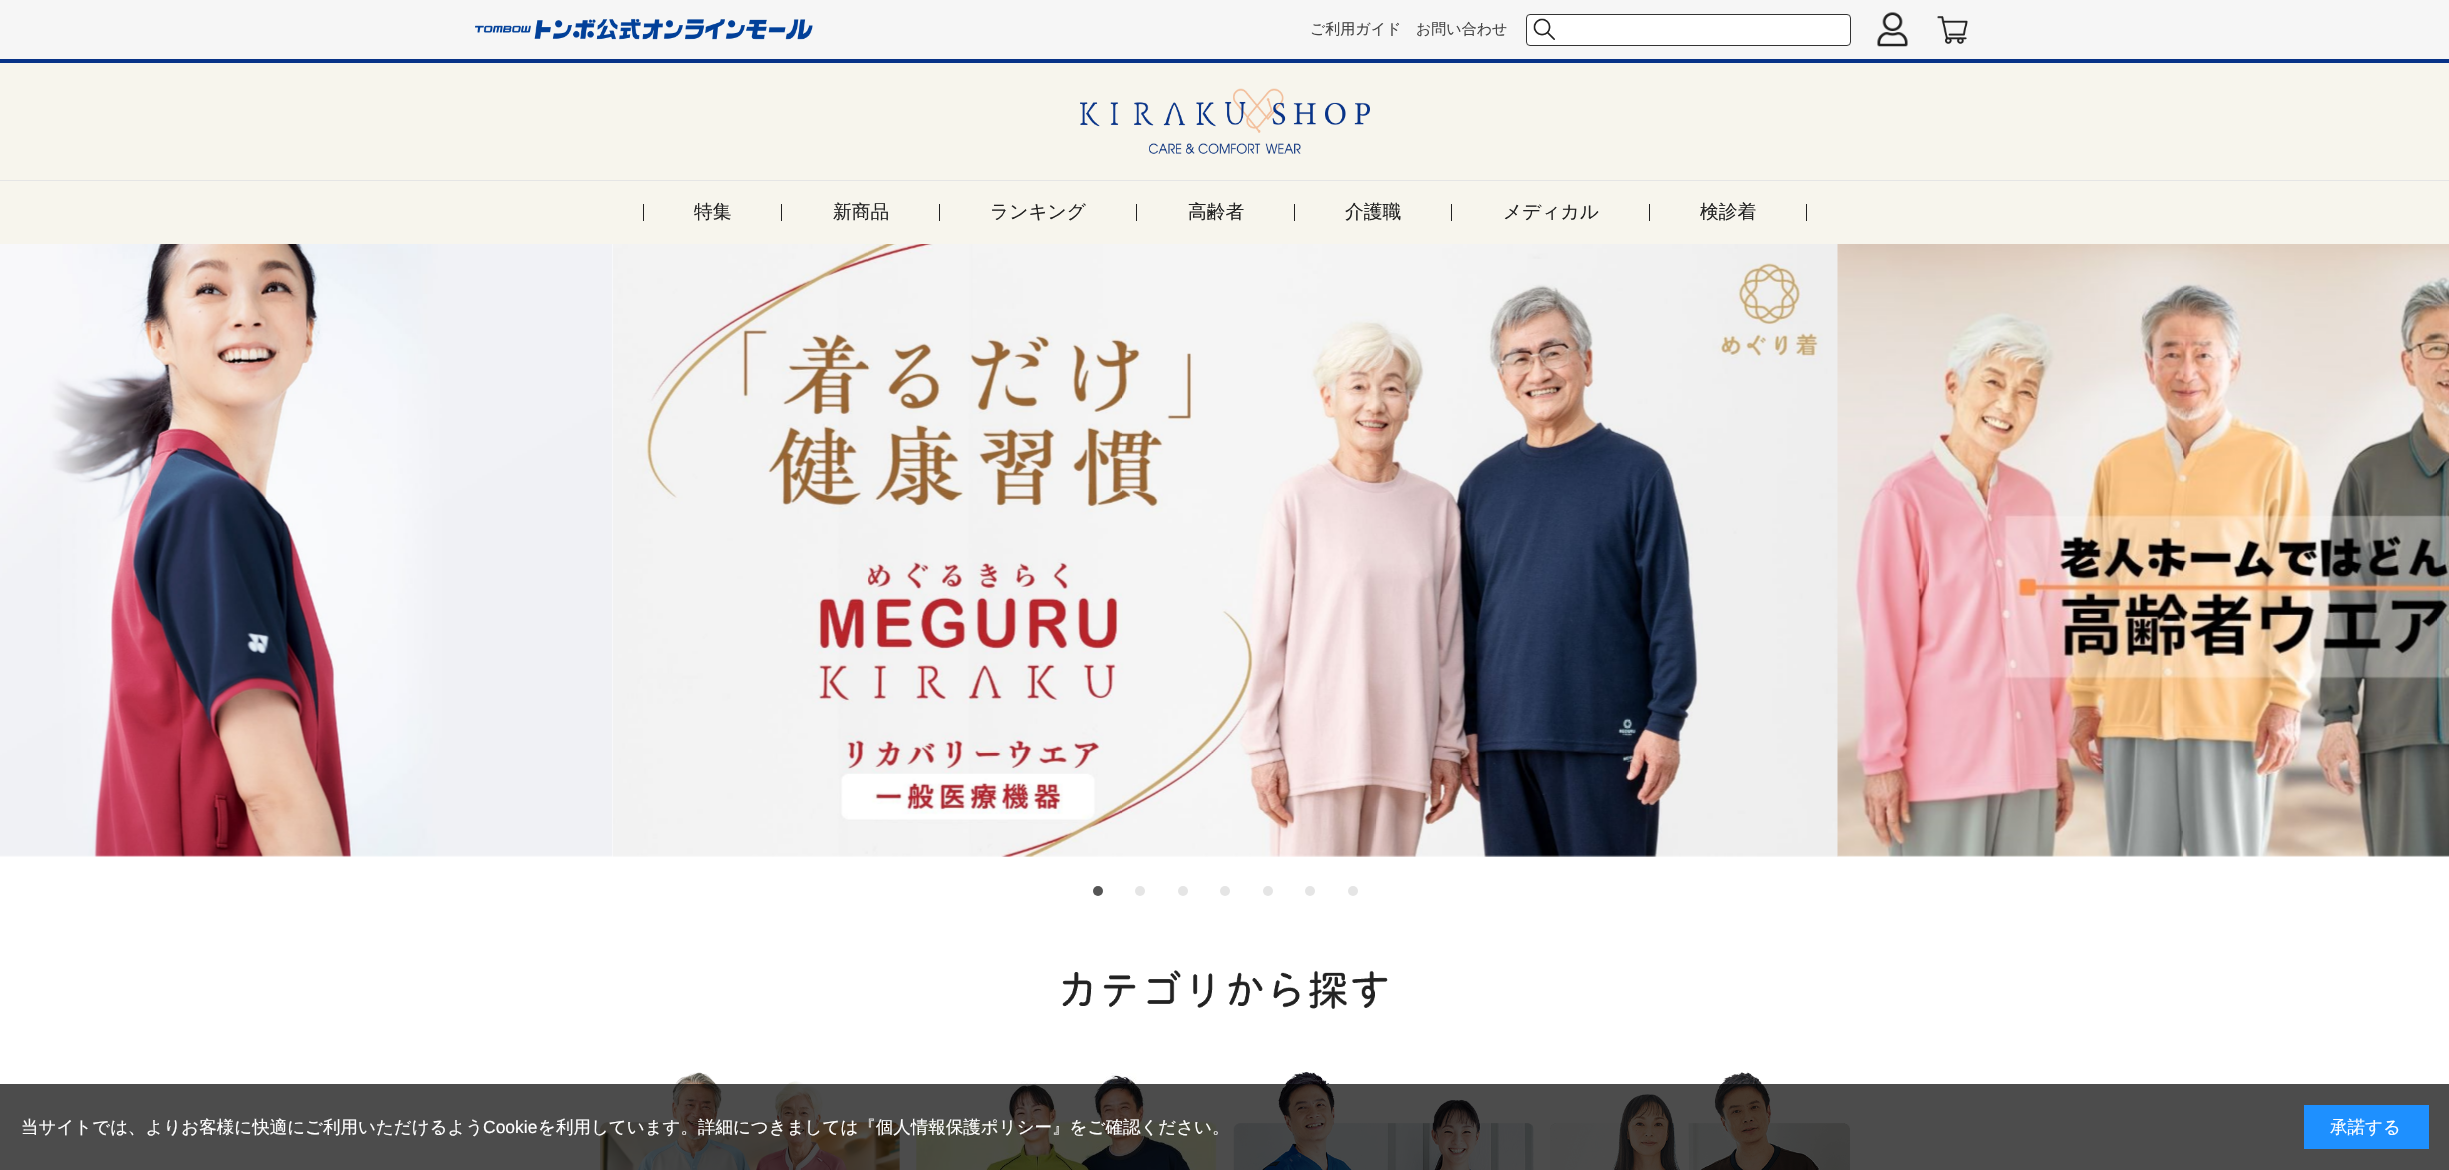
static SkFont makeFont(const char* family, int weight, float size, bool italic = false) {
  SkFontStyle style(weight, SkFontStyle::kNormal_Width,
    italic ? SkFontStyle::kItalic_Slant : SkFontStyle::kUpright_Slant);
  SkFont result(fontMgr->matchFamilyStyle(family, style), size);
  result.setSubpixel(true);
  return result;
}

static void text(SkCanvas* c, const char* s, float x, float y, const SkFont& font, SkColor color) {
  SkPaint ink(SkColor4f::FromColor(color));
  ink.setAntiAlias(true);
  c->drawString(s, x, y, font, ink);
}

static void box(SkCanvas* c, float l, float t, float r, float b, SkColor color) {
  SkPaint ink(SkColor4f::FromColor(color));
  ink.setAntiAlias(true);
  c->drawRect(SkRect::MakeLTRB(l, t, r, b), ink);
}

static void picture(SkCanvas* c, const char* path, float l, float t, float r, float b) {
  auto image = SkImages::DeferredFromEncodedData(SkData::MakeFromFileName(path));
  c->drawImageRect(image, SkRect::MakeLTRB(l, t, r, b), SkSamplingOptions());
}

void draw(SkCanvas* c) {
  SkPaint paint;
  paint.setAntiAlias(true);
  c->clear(0xffffffff);
  box(c, 0, 0, 2449, 59, 0xfff6f6f6);
  picture(c, "img_01.png", 475, 18, 813, 40);
  SkFont face1 = makeFont("WenQuanYi Zen Hei", 500, 15);
  text(c, "ご利用ガイド", 1310, 34, face1, 0xff444444);
  text(c, "お問い合わせ", 1416, 34, face1, 0xff444444);
  paint.setColor(0xffffffff);
  c->drawRoundRect(SkRect::MakeLTRB(1526.5f, 14.5f, 1850.5f, 45.5f), 3.5f, 3.5f, paint);
  paint.setStyle(SkPaint::kStroke_Style);
  paint.setStrokeWidth(1);
  paint.setColor(0xff333333);
  c->drawRoundRect(SkRect::MakeLTRB(1526.5f, 14.5f, 1850.5f, 45.5f), 3.5f, 3.5f, paint);
  picture(c, "img_02.png", 1533, 18, 1555, 40);
  picture(c, "img_03.png", 1877, 12, 1908, 47);
  picture(c, "img_04.png", 1937, 16, 1968, 44);
  box(c, 0, 59, 2449, 63, 0xff083388);
  box(c, 0, 63, 2449, 180, 0xfff7f5ed);
  box(c, 0, 180, 2449, 181, 0xffe5e5e5);
  picture(c, "img_05.png", 1080, 88, 1370, 154);
  box(c, 0, 181, 2449, 244, 0xfff7f5ed);
  box(c, 643, 204, 644, 221, 0xff222222);
  SkFont face2 = makeFont("WenQuanYi Zen Hei", 500, 18.75f);
  text(c, "特集", 694, 218, face2, 0xff222222);
  box(c, 781, 204, 782, 221, 0xff222222);
  text(c, "新商品", 833, 218, face2, 0xff222222);
  box(c, 939, 204, 940, 221, 0xff222222);
  text(c, "ランキング", 990, 218, face2, 0xff222222);
  box(c, 1136, 204, 1137, 221, 0xff222222);
  text(c, "高齢者", 1188, 218, face2, 0xff222222);
  box(c, 1294, 204, 1295, 221, 0xff222222);
  text(c, "介護職", 1345, 218, face2, 0xff222222);
  box(c, 1451, 204, 1452, 221, 0xff222222);
  text(c, "メディカル", 1503, 218, face2, 0xff222222);
  box(c, 1649, 204, 1650, 221, 0xff222222);
  text(c, "検診着", 1700, 218, face2, 0xff222222);
  box(c, 1806, 204, 1807, 221, 0xff222222);
  picture(c, "img_06.png", 0, 244, 613, 857);
  picture(c, "img_07.png", 613, 244, 1838, 857);
  picture(c, "img_08.png", 1837, 244, 2449, 857);
  paint.setStyle(SkPaint::kFill_Style);
  paint.setColor(0xff555555);
  c->drawCircle(1098, 891, 5, paint);
  paint.setColor(0xffe5e5e5);
  c->drawCircle(1140, 891, 5, paint);
  c->drawCircle(1183, 891, 5, paint);
  c->drawCircle(1225, 891, 5, paint);
  c->drawCircle(1268, 891, 5, paint);
  c->drawCircle(1310, 891, 5, paint);
  c->drawCircle(1353, 891, 5, paint);
  picture(c, "img_09.png", 1062, 970, 1388, 1009);
  picture(c, "img_10.png", 600, 1072, 900, 1170);
  picture(c, "img_11.png", 916, 1073, 1217, 1170);
  picture(c, "img_12.png", 1233, 1071, 1534, 1170);
  picture(c, "img_13.png", 1550, 1071, 1850, 1170);
  box(c, 0, 1084, 2449, 1170, 0xb3000000);
  SkFont face3 = makeFont("WenQuanYi Zen Hei", 500, 17.5f);
  text(c, "当サイトでは、よりお客様に快適にご利用いただけるよう", 21, 1133, face3, 0xffffffff);
  SkFont face4 = makeFont("Liberation Sans", 400, 17.5f);
  text(c, "Cookie", 483, 1133, face4, 0xffffffff);
  text(c, "を利用しています。詳細につきましては『個人情報保護ポリシー』をご確認ください。", 538, 1133, face3, 0xffffffff);
  box(c, 2304, 1105, 2429, 1149, 0xff1e90ff);
  text(c, "承諾する", 2330, 1133, face3, 0xffffffff);
}
